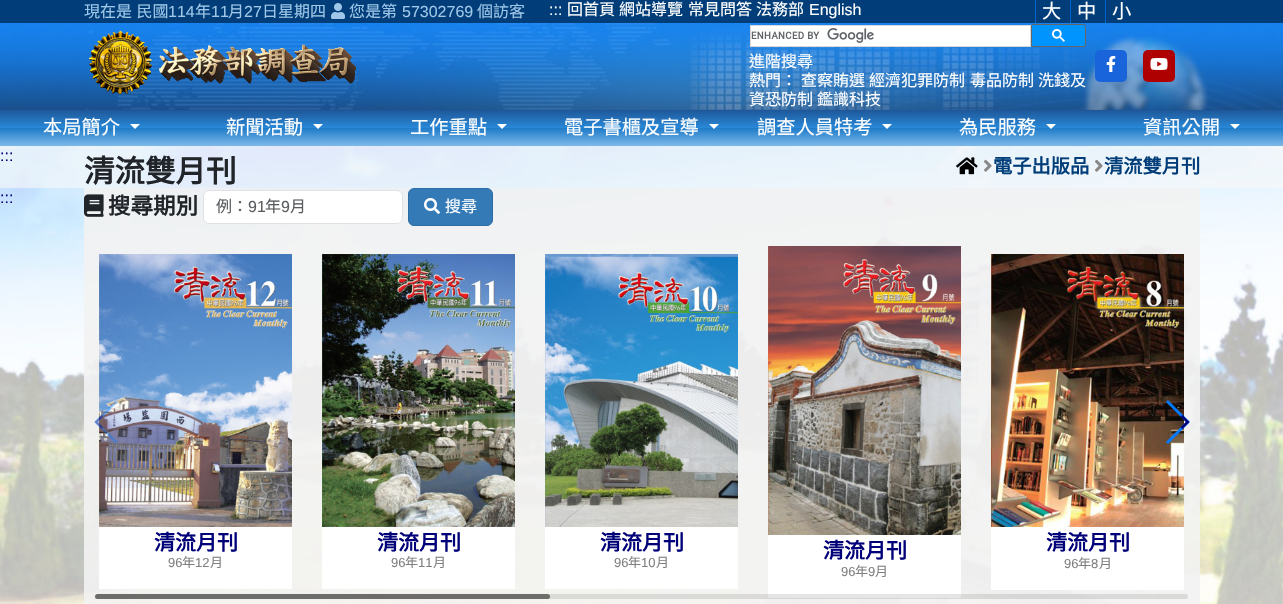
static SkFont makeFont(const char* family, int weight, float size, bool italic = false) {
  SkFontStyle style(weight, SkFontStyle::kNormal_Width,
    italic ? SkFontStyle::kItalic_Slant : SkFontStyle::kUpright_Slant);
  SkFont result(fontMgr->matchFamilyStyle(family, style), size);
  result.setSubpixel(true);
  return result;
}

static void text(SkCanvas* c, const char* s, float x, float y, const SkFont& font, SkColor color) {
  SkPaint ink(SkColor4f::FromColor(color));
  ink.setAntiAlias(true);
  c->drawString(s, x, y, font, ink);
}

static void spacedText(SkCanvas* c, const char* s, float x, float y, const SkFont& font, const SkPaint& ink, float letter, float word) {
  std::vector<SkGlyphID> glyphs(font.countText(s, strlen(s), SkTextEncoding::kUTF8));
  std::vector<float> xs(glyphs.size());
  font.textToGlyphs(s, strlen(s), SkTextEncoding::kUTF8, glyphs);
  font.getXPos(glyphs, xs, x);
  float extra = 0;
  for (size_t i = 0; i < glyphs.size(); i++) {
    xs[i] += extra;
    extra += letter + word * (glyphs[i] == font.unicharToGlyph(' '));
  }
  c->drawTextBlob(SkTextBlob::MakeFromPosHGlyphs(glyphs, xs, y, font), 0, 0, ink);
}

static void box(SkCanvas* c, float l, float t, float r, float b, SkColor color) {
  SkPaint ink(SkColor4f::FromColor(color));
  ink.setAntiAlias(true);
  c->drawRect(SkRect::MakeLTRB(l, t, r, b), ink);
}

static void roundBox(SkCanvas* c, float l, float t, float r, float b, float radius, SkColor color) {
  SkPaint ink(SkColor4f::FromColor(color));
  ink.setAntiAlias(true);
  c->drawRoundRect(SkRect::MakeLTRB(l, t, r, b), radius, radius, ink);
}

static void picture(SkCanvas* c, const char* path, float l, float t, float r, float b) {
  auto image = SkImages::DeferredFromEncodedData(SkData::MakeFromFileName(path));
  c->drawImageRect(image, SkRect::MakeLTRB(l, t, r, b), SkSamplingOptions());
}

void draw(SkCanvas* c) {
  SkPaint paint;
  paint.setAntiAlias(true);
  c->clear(0xff003d79);
  SkFont face1 = makeFont("Noto Sans CJK TC", 400, 16);
  paint.setColor(0xff9ec7e8);
  spacedText(c, "現在是 民國", 84, 17, face1, paint, 0, 1);
  SkFont face2 = makeFont("Liberation Sans", 400, 16);
  text(c, "114", 168, 17, face2, 0xff9ec7e8);
  text(c, "年", 195, 17, face1, 0xff9ec7e8);
  text(c, "11", 211, 17, face2, 0xff9ec7e8);
  text(c, "月", 228, 17, face1, 0xff9ec7e8);
  text(c, "27", 244, 17, face2, 0xff9ec7e8);
  text(c, "日星期四", 262, 17, face1, 0xff9ec7e8);
  picture(c, "img_01.png", 331, 3, 345, 19);
  text(c, "您是第", 349, 17, face1, 0xff9ec7e8);
  text(c, "57302769", 402, 17, face2, 0xff9ec7e8);
  text(c, "個訪客", 477, 17, face1, 0xff9ec7e8);
  text(c, ":::", 549, 15, face2, 0xffffffff);
  text(c, "回首頁", 567, 15, face1, 0xffffffff);
  text(c, "網站導覽", 619, 15, face1, 0xffffffff);
  text(c, "常見問答", 688, 15, face1, 0xffffffff);
  text(c, "法務部", 756, 15, face1, 0xffffffff);
  text(c, "English", 809, 15, face2, 0xffffffff);
  box(c, 1035, 0, 1036, 23, 0xff0066cc);
  SkFont face3 = makeFont("Noto Sans CJK TC", 400, 19.25f);
  text(c, "大", 1042, 18, face3, 0xffffffff);
  box(c, 1070, 0, 1071, 23, 0xff0066cc);
  text(c, "中", 1077, 18, face3, 0xffffffff);
  box(c, 1105, 0, 1106, 23, 0xff0066cc);
  text(c, "小", 1112, 18, face3, 0xffffffff);
  picture(c, "img_02.png", 0, 23, 1283, 110);
  picture(c, "img_03.png", 88, 31, 356, 95);
  paint.setColor(0xffffffff);
  c->drawRect(SkRect::MakeLTRB(750.5f, 25.5f, 1030.5f, 46.5f), paint);
  paint.setStyle(SkPaint::kStroke_Style);
  paint.setStrokeWidth(1);
  paint.setColor(0xffd9d9d9);
  c->drawRect(SkRect::MakeLTRB(750.5f, 25.5f, 1030.5f, 46.5f), paint);
  picture(c, "img_04.png", 751, 28, 874, 43);
  paint.setStyle(SkPaint::kFill_Style);
  paint.setColor(0xff0094ff);
  c->drawRoundRect(SkRect::MakeLTRB(1031.5f, 24.5f, 1085.5f, 46.5f), 1.5f, 1.5f, paint);
  paint.setStyle(SkPaint::kStroke_Style);
  paint.setColor(0xff666666);
  c->drawRoundRect(SkRect::MakeLTRB(1031.5f, 24.5f, 1085.5f, 46.5f), 1.5f, 1.5f, paint);
  picture(c, "img_05.png", 1052, 29, 1065, 42);
  text(c, "進階搜尋", 749, 67, face1, 0xffffffff);
  text(c, "熱門：", 749, 86, face1, 0xffffffff);
  text(c, "查察賄選", 801, 86, face1, 0xffffffff);
  text(c, "經濟犯罪防制", 869, 86, face1, 0xffffffff);
  text(c, "毒品防制", 970, 86, face1, 0xffffffff);
  text(c, "洗錢及", 1038, 86, face1, 0xffffffff);
  text(c, "資恐防制", 749, 105, face1, 0xffffffff);
  text(c, "鑑識科技", 817, 105, face1, 0xffffffff);
  roundBox(c, 1095, 50, 1127, 82, 5, 0xff1964da);
  picture(c, "img_06.png", 1106, 56, 1116, 72);
  roundBox(c, 1143, 50, 1175, 82, 5, 0xffae0000);
  picture(c, "img_07.png", 1150, 58, 1168, 70);
  paint.setStyle(SkPaint::kFill_Style);
  {
    const SkColor colors[] = {0xff1e5799, 0xff2989d8, 0xff207cca, 0xff7db9e8};
    const float stops[] = {0, 0.5f, 0.51f, 1};
    const SkPoint ends[] = {{642, 110}, {642, 146}};
    paint.setShader(SkGradientShader::MakeLinear(ends, colors, stops, 4, SkTileMode::kClamp));
    paint.setAlpha(255);
  }
  c->drawRect(SkRect::MakeLTRB(0, 110, 1283, 146), paint);
  text(c, "本局簡介", 43, 134, face3, 0xffffffff);
  paint.setShader(nullptr);
  paint.setColor(0xffffffff);
  c->drawPath(SkPathBuilder().moveTo(130, 124).lineTo(140, 124).lineTo(135, 129).close().detach(), paint);
  text(c, "新聞活動", 226, 134, face3, 0xffffffff);
  c->drawPath(SkPathBuilder().moveTo(313, 124).lineTo(323, 124).lineTo(318, 129).close().detach(), paint);
  text(c, "工作重點", 410, 134, face3, 0xffffffff);
  c->drawPath(SkPathBuilder().moveTo(497, 124).lineTo(507, 124).lineTo(502, 129).close().detach(), paint);
  text(c, "電子書櫃及宣導", 564, 134, face3, 0xffffffff);
  c->drawPath(SkPathBuilder().moveTo(709, 124).lineTo(719, 124).lineTo(714, 129).close().detach(), paint);
  text(c, "調查人員特考", 757, 134, face3, 0xffffffff);
  c->drawPath(SkPathBuilder().moveTo(882, 124).lineTo(892, 124).lineTo(887, 129).close().detach(), paint);
  text(c, "為民服務", 959, 134, face3, 0xffffffff);
  c->drawPath(SkPathBuilder().moveTo(1046, 124).lineTo(1056, 124).lineTo(1051, 129).close().detach(), paint);
  text(c, "資訊公開", 1143, 134, face3, 0xffffffff);
  c->drawPath(SkPathBuilder().moveTo(1230, 124).lineTo(1240, 124).lineTo(1235, 129).close().detach(), paint);
  picture(c, "img_08.png", 0, 146, 1283, 604);
  box(c, 0, 146, 1283, 188, 0x99f9f9f9);
  text(c, ":::", 0, 161, face2, 0xff000079);
  SkFont face4 = makeFont("Noto Sans CJK TC", 700, 30.5f);
  text(c, "清流雙月刊", 84, 182, face4, 0xff212529);
  picture(c, "img_09.png", 975, 164, 978, 169);
  picture(c, "img_10.png", 956, 157, 978, 175);
  picture(c, "img_11.png", 1086, 163, 1089, 168);
  picture(c, "img_12.png", 984, 159, 992, 172);
  SkFont face5 = makeFont("Noto Sans CJK TC", 700, 19.25f);
  text(c, "電子出版品", 993, 173, face5, 0xff003d79);
  picture(c, "img_13.png", 1197, 163, 1200, 168);
  picture(c, "img_14.png", 1095, 159, 1103, 172);
  text(c, "清流雙月刊", 1104, 173, face5, 0xff003d79);
  text(c, ":::", 0, 203, face2, 0xff000079);
  box(c, 84, 188, 1200, 604, 0xe6f2f2f2);
  picture(c, "img_15.png", 84, 194, 104, 217);
  SkFont face6 = makeFont("Noto Sans CJK TC", 700, 22.5f);
  text(c, "搜尋期別", 108, 214, face6, 0xff212529);
  c->drawRoundRect(SkRect::MakeLTRB(203.5f, 190.5f, 402.5f, 223.5f), 5.5f, 5.5f, paint);
  paint.setStyle(SkPaint::kStroke_Style);
  paint.setColor(0xffdee2e6);
  c->drawRoundRect(SkRect::MakeLTRB(203.5f, 190.5f, 402.5f, 223.5f), 5.5f, 5.5f, paint);
  text(c, "例：", 216, 212, face1, 0xff595c5f);
  text(c, "91", 248, 212, face2, 0xff595c5f);
  text(c, "年", 265, 212, face1, 0xff595c5f);
  text(c, "9", 281, 212, face2, 0xff595c5f);
  text(c, "月", 290, 212, face1, 0xff595c5f);
  paint.setStyle(SkPaint::kFill_Style);
  paint.setColor(0xff337ab7);
  c->drawRoundRect(SkRect::MakeLTRB(408.5f, 188.5f, 492.5f, 225.5f), 5.5f, 5.5f, paint);
  paint.setStyle(SkPaint::kStroke_Style);
  paint.setColor(0xff2e6da4);
  c->drawRoundRect(SkRect::MakeLTRB(408.5f, 188.5f, 492.5f, 225.5f), 5.5f, 5.5f, paint);
  picture(c, "img_16.png", 424, 198, 440, 214);
  text(c, "搜尋", 445, 212, face1, 0xffffffff);
  picture(c, "img_19.png", 99, 254, 292, 527);
  paint.setStyle(SkPaint::kFill_Style);
  paint.setColor(0x59007aff);
  c->drawPath(SkPathBuilder().moveTo(94, 422).lineTo(116, 400).lineTo(118, 402).lineTo(98, 422).lineTo(118, 442).lineTo(116, 444).close().detach(), paint);
  picture(c, "img_17.png", 95, 415, 103, 429);
  picture(c, "img_23.png", 991, 254, 1184, 527);
  paint.setColor(0xff007aff);
  c->drawPath(SkPathBuilder().moveTo(1190, 422).lineTo(1168, 444).lineTo(1166, 442).lineTo(1186, 422).lineTo(1166, 402).lineTo(1168, 400).close().detach(), paint);
  picture(c, "img_18.png", 1180, 415, 1190, 429);
  box(c, 99, 527, 292, 589, 0xffffffff);
  SkFont face7 = makeFont("Noto Sans CJK TC", 700, 21);
  text(c, "清流月刊", 154, 550, face7, 0xff000079);
  SkFont face8 = makeFont("Liberation Sans", 400, 13);
  text(c, "96", 168, 567, face8, 0xff808080);
  SkFont face9 = makeFont("Noto Sans CJK TC", 400, 13);
  text(c, "年", 182, 567, face9, 0xff808080);
  text(c, "12", 195, 567, face8, 0xff808080);
  text(c, "月", 210, 567, face9, 0xff808080);
  box(c, 322, 527, 515, 589, 0xffffffff);
  picture(c, "img_20.png", 322, 254, 515, 527);
  text(c, "清流月刊", 377, 550, face7, 0xff000079);
  text(c, "96", 391, 567, face8, 0xff808080);
  text(c, "年", 405, 567, face9, 0xff808080);
  text(c, "11", 418, 567, face8, 0xff808080);
  text(c, "月", 433, 567, face9, 0xff808080);
  box(c, 545, 527, 738, 589, 0xffffffff);
  picture(c, "img_21.png", 545, 254, 738, 527);
  text(c, "清流月刊", 600, 550, face7, 0xff000079);
  text(c, "96", 614, 567, face8, 0xff808080);
  text(c, "年", 628, 567, face9, 0xff808080);
  text(c, "10", 641, 567, face8, 0xff808080);
  text(c, "月", 656, 567, face9, 0xff808080);
  box(c, 768, 535, 961, 598, 0xffffffff);
  picture(c, "img_22.png", 768, 246, 961, 535);
  text(c, "清流月刊", 823, 558, face7, 0xff000079);
  text(c, "96", 841, 576, face8, 0xff808080);
  text(c, "年", 855, 576, face9, 0xff808080);
  text(c, "9", 868, 576, face8, 0xff808080);
  text(c, "月", 875, 576, face9, 0xff808080);
  box(c, 991, 527, 1184, 590, 0xffffffff);
  text(c, "清流月刊", 1046, 550, face7, 0xff000079);
  text(c, "96", 1064, 568, face8, 0xff808080);
  text(c, "年", 1078, 568, face9, 0xff808080);
  text(c, "8", 1091, 568, face8, 0xff808080);
  text(c, "月", 1099, 568, face9, 0xff808080);
  roundBox(c, 95, 594, 1188, 599, 2.5f, 0x1a000000);
  roundBox(c, 95, 594, 550, 599, 2.5f, 0x80000000);
}
